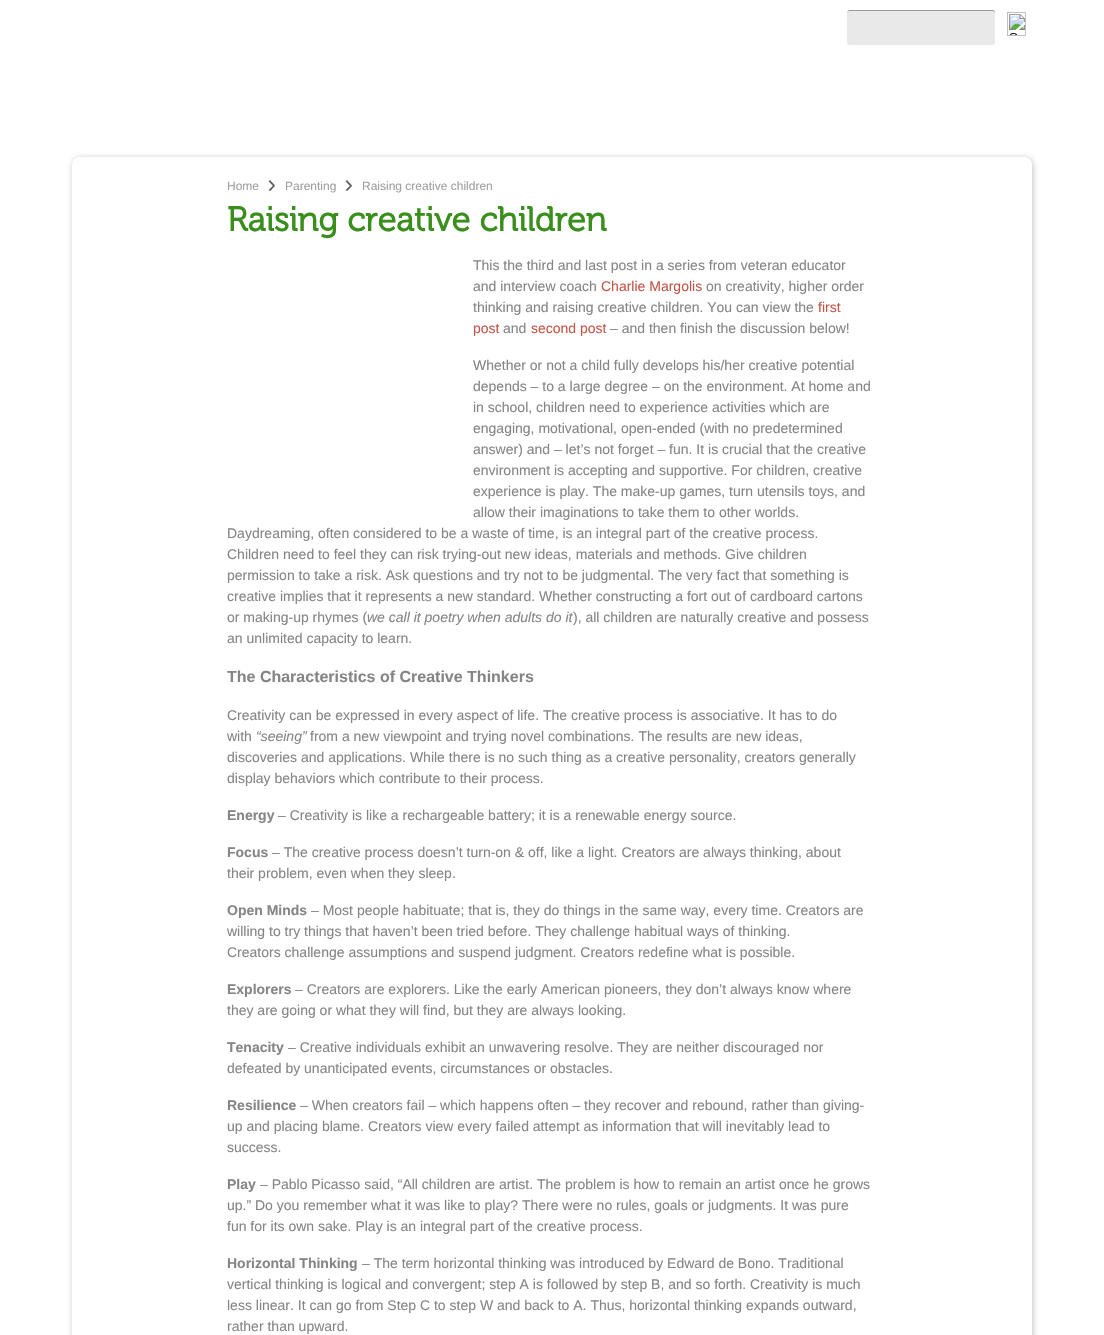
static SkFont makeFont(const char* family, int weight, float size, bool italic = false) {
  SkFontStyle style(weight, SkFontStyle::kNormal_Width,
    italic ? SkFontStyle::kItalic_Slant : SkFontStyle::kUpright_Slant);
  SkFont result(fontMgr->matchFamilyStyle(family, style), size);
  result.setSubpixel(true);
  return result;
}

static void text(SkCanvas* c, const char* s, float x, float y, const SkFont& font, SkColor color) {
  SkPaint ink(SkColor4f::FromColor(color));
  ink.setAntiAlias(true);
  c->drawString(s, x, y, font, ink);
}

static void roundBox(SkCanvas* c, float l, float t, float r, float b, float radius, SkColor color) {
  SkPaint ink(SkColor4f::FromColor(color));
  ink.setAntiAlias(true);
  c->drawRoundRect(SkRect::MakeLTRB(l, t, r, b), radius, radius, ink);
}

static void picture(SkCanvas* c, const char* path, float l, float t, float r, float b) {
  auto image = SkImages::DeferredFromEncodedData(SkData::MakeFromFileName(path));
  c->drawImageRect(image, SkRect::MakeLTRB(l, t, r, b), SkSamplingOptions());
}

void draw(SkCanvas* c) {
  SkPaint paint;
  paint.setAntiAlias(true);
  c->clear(0xffffffff);
  roundBox(c, 847, 10, 995, 45, 3, 0xffe9e9e9);
  c->save();
  c->clipRect(SkRect::MakeLTRB(847, 10, 1032, 60));
  paint.setColor(0xff9a9a9a);
  c->drawPath(SkPathBuilder().moveTo(850, 11).lineTo(992, 11).cubicTo(994, 11, 995, 12, 995, 14).cubicTo(995, 12, 995, 11, 993, 10).lineTo(874, 10).cubicTo(866, 10, 847, 5, 847, 14).cubicTo(847, 12, 848, 11, 850, 11).close().detach(), paint);
  c->restore();
  picture(c, "img_01.png", 1007, 12, 1026, 36);
  paint.setColor(0x66666666);
  paint.setMaskFilter(SkMaskFilter::MakeBlur(kNormal_SkBlurStyle, 3));
  c->drawRoundRect(SkRect::MakeLTRB(73, 158, 1033, 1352), 8, 8, paint);
  paint.setMaskFilter(nullptr);
  paint.setColor(0xffffffff);
  c->drawPath(SkPathBuilder().moveTo(80, 157).lineTo(1024, 157).cubicTo(1028.5f, 157, 1032, 160.5f, 1032, 165).lineTo(1032, 1335).lineTo(72, 1335).lineTo(72, 165).cubicTo(72, 160.5f, 75.5f, 157, 80, 157).close().detach(), paint);
  SkFont face1 = makeFont("Liberation Sans", 400, 12);
  text(c, "Home", 227, 190, face1, 0xff9f9f9f);
  picture(c, "img_02.png", 268, 180, 275, 191);
  text(c, "Parenting", 285, 190, face1, 0xff9f9f9f);
  picture(c, "img_02.png", 345, 180, 352, 191);
  text(c, "Raising creative children", 362, 190, face1, 0xff9f9f9f);
  SkFont face2 = makeFont("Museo", 700, 34);
  text(c, "Raising creative children", 227, 231, face2, 0xff398e1c);
  SkFont face3 = makeFont("Liberation Sans", 400, 14);
  text(c, "This the third and last post in a series from veteran educator", 473, 270, face3, 0xff858585);
  text(c, "and interview coach", 473, 291, face3, 0xff858585);
  text(c, "Charlie Margolis", 601, 291, face3, 0xffc15648);
  text(c, "on creativity, higher order", 706, 291, face3, 0xff858585);
  text(c, "thinking and raising creative children. You can view the", 473, 312, face3, 0xff858585);
  text(c, "first", 818, 312, face3, 0xffc15648);
  text(c, "post", 473, 333, face3, 0xffc15648);
  text(c, "and", 503, 333, face3, 0xff858585);
  text(c, "second post", 531, 333, face3, 0xffc15648);
  text(c, "– and then finish the discussion below!", 610, 333, face3, 0xff858585);
  text(c, "Whether or not a child fully develops his/her creative potential", 473, 370, face3, 0xff858585);
  text(c, "depends – to a large degree – on the environment. At home and", 473, 391, face3, 0xff858585);
  text(c, "in school, children need to experience activities which are", 473, 412, face3, 0xff858585);
  text(c, "engaging, motivational, open-ended (with no predetermined", 473, 433, face3, 0xff858585);
  text(c, "answer) and – let’s not forget – fun. It is crucial that the creative", 473, 454, face3, 0xff858585);
  text(c, "environment is accepting and supportive. For children, creative", 473, 475, face3, 0xff858585);
  text(c, "experience is play. The make-up games, turn utensils toys, and", 473, 496, face3, 0xff858585);
  text(c, "allow their imaginations to take them to other worlds.", 473, 517, face3, 0xff858585);
  text(c, "Daydreaming, often considered to be a waste of time, is an integral part of the creative process.", 227, 538, face3, 0xff858585);
  text(c, "Children need to feel they can risk trying-out new ideas, materials and methods. Give children", 227, 559, face3, 0xff858585);
  text(c, "permission to take a risk. Ask questions and try not to be judgmental. The very fact that something is", 227, 580, face3, 0xff858585);
  text(c, "creative implies that it represents a new standard. Whether constructing a fort out of cardboard cartons", 227, 601, face3, 0xff858585);
  text(c, "or making-up rhymes (", 227, 622, face3, 0xff858585);
  SkFont face4 = makeFont("Liberation Sans", 400, 14, true);
  text(c, "we call it poetry when adults do it", 367, 622, face4, 0xff858585);
  text(c, "), all children are naturally creative and possess", 573, 622, face3, 0xff858585);
  text(c, "an unlimited capacity to learn.", 227, 643, face3, 0xff858585);
  SkFont face5 = makeFont("Liberation Sans", 700, 16);
  text(c, "The Characteristics of Creative Thinkers", 227, 682, face5, 0xff858585);
  text(c, "Creativity can be expressed in every aspect of life. The creative process is associative. It has to do", 227, 720, face3, 0xff858585);
  text(c, "with", 227, 741, face3, 0xff858585);
  text(c, "“seeing”", 256, 741, face4, 0xff858585);
  text(c, "from a new viewpoint and trying novel combinations. The results are new ideas,", 310, 741, face3, 0xff858585);
  text(c, "discoveries and applications. While there is no such thing as a creative personality, creators generally", 227, 762, face3, 0xff858585);
  text(c, "display behaviors which contribute to their process.", 227, 783, face3, 0xff858585);
  SkFont face6 = makeFont("Liberation Sans", 700, 14);
  text(c, "Energy", 227, 820, face6, 0xff858585);
  text(c, "– Creativity is like a rechargeable battery; it is a renewable energy source.", 278, 820, face3, 0xff858585);
  text(c, "Focus", 227, 857, face6, 0xff858585);
  text(c, "– The creative process doesn’t turn-on & off, like a light. Creators are always thinking, about", 272, 857, face3, 0xff858585);
  text(c, "their problem, even when they sleep.", 227, 878, face3, 0xff858585);
  text(c, "Open Minds", 227, 915, face6, 0xff858585);
  text(c, "– Most people habituate; that is, they do things in the same way, every time. Creators are", 311, 915, face3, 0xff858585);
  text(c, "willing to try things that haven’t been tried before. They challenge habitual ways of thinking.", 227, 936, face3, 0xff858585);
  text(c, "Creators challenge assumptions and suspend judgment. Creators redefine what is possible.", 227, 957, face3, 0xff858585);
  text(c, "Explorers", 227, 994, face6, 0xff858585);
  text(c, "– Creators are explorers. Like the early American pioneers, they don’t always know where", 295, 994, face3, 0xff858585);
  text(c, "they are going or what they will find, but they are always looking.", 227, 1015, face3, 0xff858585);
  text(c, "Tenacity", 227, 1052, face6, 0xff858585);
  text(c, "– Creative individuals exhibit an unwavering resolve. They are neither discouraged nor", 288, 1052, face3, 0xff858585);
  text(c, "defeated by unanticipated events, circumstances or obstacles.", 227, 1073, face3, 0xff858585);
  text(c, "Resilience", 227, 1110, face6, 0xff858585);
  text(c, "– When creators fail – which happens often – they recover and rebound, rather than giving-", 300, 1110, face3, 0xff858585);
  text(c, "up and placing blame. Creators view every failed attempt as information that will inevitably lead to", 227, 1131, face3, 0xff858585);
  text(c, "success.", 227, 1152, face3, 0xff858585);
  text(c, "Play", 227, 1189, face6, 0xff858585);
  text(c, "– Pablo Picasso said, “All children are artist. The problem is how to remain an artist once he grows", 260, 1189, face3, 0xff858585);
  text(c, "up.” Do you remember what it was like to play? There were no rules, goals or judgments. It was pure", 227, 1210, face3, 0xff858585);
  text(c, "fun for its own sake. Play is an integral part of the creative process.", 227, 1231, face3, 0xff858585);
  text(c, "Horizontal Thinking", 227, 1268, face6, 0xff858585);
  text(c, "– The term horizontal thinking was introduced by Edward de Bono. Traditional", 362, 1268, face3, 0xff858585);
  text(c, "vertical thinking is logical and convergent; step A is followed by step B, and so forth. Creativity is much", 227, 1289, face3, 0xff858585);
  text(c, "less linear. It can go from Step C to step W and back to A. Thus, horizontal thinking expands outward,", 227, 1310, face3, 0xff858585);
  text(c, "rather than upward.", 227, 1331, face3, 0xff858585);
}
